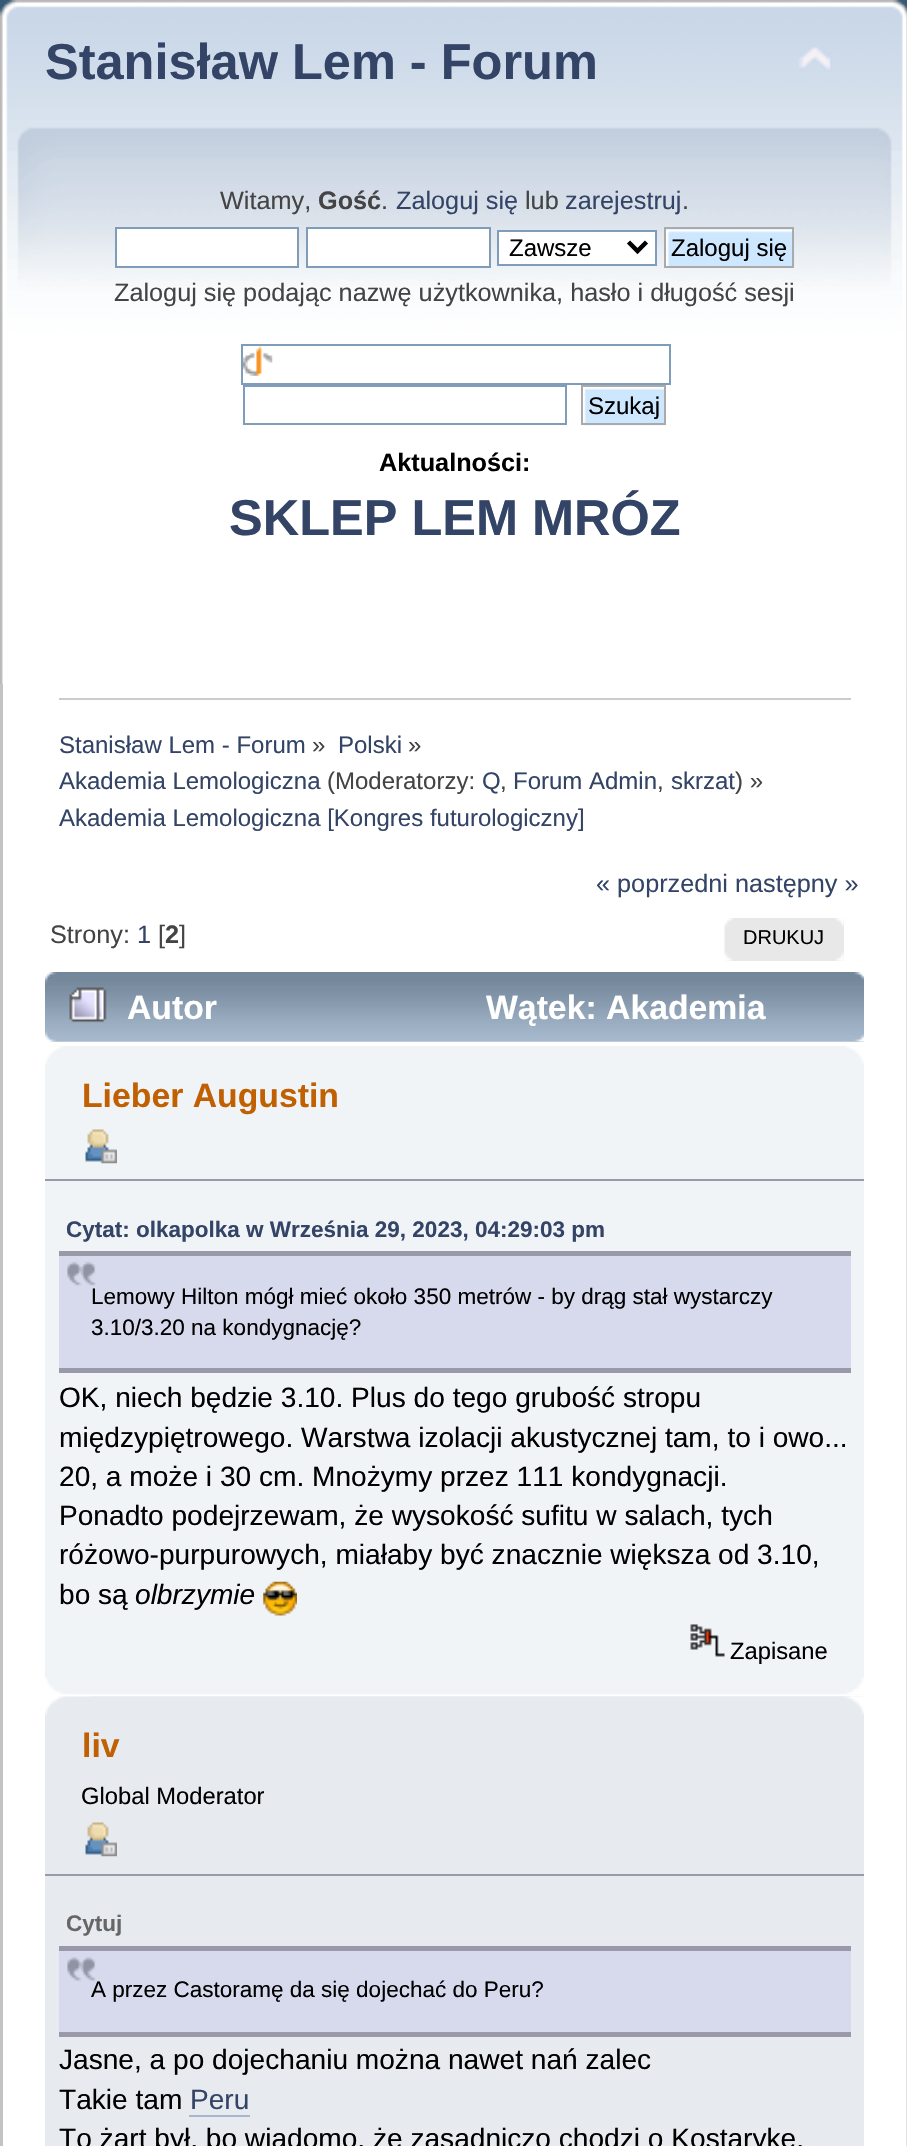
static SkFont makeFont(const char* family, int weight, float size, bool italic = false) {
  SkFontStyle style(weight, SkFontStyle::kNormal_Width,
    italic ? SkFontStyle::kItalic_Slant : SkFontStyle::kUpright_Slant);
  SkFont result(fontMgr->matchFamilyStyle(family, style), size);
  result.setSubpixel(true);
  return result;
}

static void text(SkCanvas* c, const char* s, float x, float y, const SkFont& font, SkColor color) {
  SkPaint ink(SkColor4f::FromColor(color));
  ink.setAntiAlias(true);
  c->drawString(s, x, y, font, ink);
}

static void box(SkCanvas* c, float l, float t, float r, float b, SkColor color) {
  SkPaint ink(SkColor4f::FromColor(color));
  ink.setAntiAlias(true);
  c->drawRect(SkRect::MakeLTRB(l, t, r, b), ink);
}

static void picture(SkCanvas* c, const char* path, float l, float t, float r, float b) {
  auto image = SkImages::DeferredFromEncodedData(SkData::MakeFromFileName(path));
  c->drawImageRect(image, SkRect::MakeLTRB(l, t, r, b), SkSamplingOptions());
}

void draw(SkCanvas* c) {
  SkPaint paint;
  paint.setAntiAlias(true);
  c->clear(0xffffffff);
  picture(c, "img_01.png", 0, 0, 879, 684);
  picture(c, "img_02.png", 879, 0, 907, 684);
  SkFont face1 = makeFont("Liberation Sans", 700, 50.5f);
  text(c, "Stanisław Lem - Forum", 45, 79, face1, 0xff334466);
  picture(c, "img_03.png", 798, 46, 832, 72);
  SkFont face2 = makeFont("Liberation Sans", 400, 25.25f);
  text(c, "Witamy,", 220, 209, face2, 0xff444444);
  SkFont face3 = makeFont("Liberation Sans", 700, 25.25f);
  text(c, "Gość", 318, 209, face3, 0xff444444);
  text(c, ".", 381, 209, face2, 0xff444444);
  text(c, "Zaloguj się", 396, 209, face2, 0xff334466);
  text(c, "lub", 525, 209, face2, 0xff444444);
  text(c, "zarejestruj", 565, 209, face2, 0xff334466);
  text(c, ".", 682, 209, face2, 0xff444444);
  paint.setColor(0xffffffff);
  c->drawRect(SkRect::MakeLTRB(116, 228, 298, 267), paint);
  paint.setStyle(SkPaint::kStroke_Style);
  paint.setStrokeWidth(2);
  paint.setColor(0xff7f9db9);
  c->drawRect(SkRect::MakeLTRB(116, 228, 298, 267), paint);
  paint.setStyle(SkPaint::kFill_Style);
  paint.setColor(0xffffffff);
  c->drawRect(SkRect::MakeLTRB(307, 228, 490, 267), paint);
  paint.setStyle(SkPaint::kStroke_Style);
  paint.setColor(0xff7f9db9);
  c->drawRect(SkRect::MakeLTRB(307, 228, 490, 267), paint);
  paint.setStyle(SkPaint::kFill_Style);
  paint.setColor(0xffffffff);
  c->drawRect(SkRect::MakeLTRB(498, 231, 656, 265), paint);
  paint.setStyle(SkPaint::kStroke_Style);
  paint.setColor(0xff7f9db9);
  c->drawRect(SkRect::MakeLTRB(498, 231, 656, 265), paint);
  paint.setStrokeWidth(4.5f);
  paint.setColor(0xff000000);
  c->drawPath(SkPathBuilder().moveTo(628.5f, 242).lineTo(637.5f, 251).lineTo(646.5f, 242).detach(), paint);
  SkFont face4 = makeFont("Liberation Sans", 400, 24);
  text(c, "Zawsze", 509, 256, face4, 0xff000000);
  box(c, 666, 229, 792, 230, 0xffcde7ff);
  picture(c, "img_04.png", 666, 229, 795, 268);
  paint.setStrokeWidth(2);
  paint.setColor(0xffaaaaaa);
  c->drawRect(SkRect::MakeLTRB(665, 228, 793, 267), paint);
  text(c, "Zaloguj się", 671, 256, face4, 0xff000000);
  text(c, "Zaloguj się podając nazwę użytkownika, hasło i długość sesji", 114, 301, face2, 0xff444444);
  picture(c, "img_05.png", 243, 346, 273, 376);
  paint.setColor(0xff7f9db9);
  c->drawRect(SkRect::MakeLTRB(242, 345, 670, 384), paint);
  c->drawRect(SkRect::MakeLTRB(244, 386, 566, 424), paint);
  picture(c, "img_06.png", 582, 387, 666, 426);
  paint.setColor(0xffaaaaaa);
  c->drawRect(SkRect::MakeLTRB(582, 386, 665, 424), paint);
  text(c, "Szukaj", 588, 414, face4, 0xff000000);
  text(c, "Aktualności:", 379, 471, face3, 0xff000000);
  text(c, "SKLEP LEM MRÓZ", 229, 535, face1, 0xff334466);
  box(c, 0, 684, 3, 2146, 0xffc3c3c3);
  box(c, 906, 684, 907, 2146, 0xffe3e3e3);
  box(c, 59, 698, 851, 700, 0xffcccccc);
  text(c, "Stanisław Lem - Forum", 59, 753, face4, 0xff334466);
  text(c, "»", 312, 753, face4, 0xff444444);
  text(c, "Polski", 338, 753, face4, 0xff334466);
  text(c, "»", 408, 753, face4, 0xff444444);
  text(c, "Akademia Lemologiczna", 59, 789, face4, 0xff334466);
  text(c, "(Moderatorzy:", 327, 789, face4, 0xff444444);
  text(c, "Q", 482, 789, face4, 0xff334466);
  text(c, ",", 500, 789, face4, 0xff444444);
  text(c, "Forum Admin", 513, 789, face4, 0xff334466);
  text(c, ",", 657, 789, face4, 0xff444444);
  text(c, "skrzat", 671, 789, face4, 0xff334466);
  text(c, ") »", 735, 789, face4, 0xff444444);
  text(c, "Akademia Lemologiczna [Kongres futurologiczny]", 59, 826, face4, 0xff334466);
  text(c, "« poprzedni następny »", 596, 892, face2, 0xff334466);
  text(c, "Strony:", 50, 943, face2, 0xff444444);
  text(c, "1", 137, 943, face2, 0xff334466);
  text(c, "[", 158, 943, face2, 0xff444444);
  text(c, "2", 165, 943, face3, 0xff444444);
  text(c, "]", 179, 943, face2, 0xff444444);
  box(c, 725, 918, 844, 961, 0xffe8e8e8);
  picture(c, "img_07.png", 724, 918, 733, 961);
  picture(c, "img_08.png", 835, 918, 844, 961);
  SkFont face5 = makeFont("Liberation Sans", 400, 20);
  text(c, "DRUKUJ", 743, 944, face5, 0xff000000);
  picture(c, "img_09.png", 45, 972, 864, 1042);
  picture(c, "img_10.png", 854, 972, 864, 1042);
  picture(c, "img_11.png", 69, 987, 107, 1023);
  SkFont face6 = makeFont("Liberation Sans", 700, 33.75f);
  text(c, "Autor", 127, 1019, face6, 0xffffffff);
  text(c, "Wątek: Akademia", 486, 1019, face6, 0xffffffff);
  box(c, 45, 1046, 864, 1677, 0xfff0f4f7);
  picture(c, "img_12.png", 45, 1046, 63, 1064);
  picture(c, "img_13.png", 846, 1046, 864, 1064);
  text(c, "Lieber Augustin", 82, 1107, face6, 0xffc06002);
  picture(c, "img_14.png", 85, 1129, 117, 1164);
  box(c, 45, 1179, 864, 1181, 0xff9999aa);
  SkFont face7 = makeFont("Liberation Sans", 700, 22.5f);
  text(c, "Cytat: olkapolka w Września 29, 2023, 04:29:03 pm", 66, 1237, face7, 0xff334466);
  box(c, 59, 1256, 851, 1368, 0xffd7daec);
  picture(c, "img_15.png", 67, 1261, 96, 1286);
  box(c, 59, 1251, 851, 1256, 0xff9999aa);
  box(c, 59, 1368, 851, 1373, 0xff9999aa);
  SkFont face8 = makeFont("Liberation Sans", 400, 22.5f);
  text(c, "Lemowy Hilton mógł mieć około 350 metrów - by drąg stał wystarczy", 91, 1304, face8, 0xff000000);
  text(c, "3.10/3.20 na kondygnację?", 91, 1335, face8, 0xff000000);
  SkFont face9 = makeFont("Liberation Sans", 400, 28.1f);
  text(c, "OK, niech będzie 3.10. Plus do tego grubość stropu", 59, 1407, face9, 0xff000000);
  text(c, "międzypiętrowego. Warstwa izolacji akustycznej tam, to i owo...", 59, 1447, face9, 0xff000000);
  text(c, "20, a może i 30 cm. Mnożymy przez 111 kondygnacji.", 59, 1486, face9, 0xff000000);
  text(c, "Ponadto podejrzewam, że wysokość sufitu w salach, tych", 59, 1525, face9, 0xff000000);
  text(c, "różowo-purpurowych, miałaby być znacznie większa od 3.10,", 59, 1564, face9, 0xff000000);
  text(c, "bo są", 59, 1604, face9, 0xff000000);
  SkFont face10 = makeFont("Liberation Sans", 400, 28.1f, true);
  text(c, "olbrzymie", 135, 1604, face10, 0xff000000);
  picture(c, "img_16.png", 263, 1581, 297, 1616);
  picture(c, "img_17.png", 690, 1624, 725, 1657);
  SkFont face11 = makeFont("Liberation Sans", 400, 23.75f);
  text(c, "Zapisane", 730, 1659, face11, 0xff000000);
  picture(c, "img_18.png", 45, 1677, 864, 1695);
  picture(c, "img_19.png", 846, 1677, 864, 1694);
  box(c, 45, 1716, 864, 2146, 0xffe7eaef);
  picture(c, "img_20.png", 45, 1696, 864, 1716);
  picture(c, "img_21.png", 90, 1696, 864, 1715);
  text(c, "liv", 82, 1757, face6, 0xffc06002);
  text(c, "Global Moderator", 81, 1804, face11, 0xff000000);
  picture(c, "img_22.png", 85, 1822, 117, 1857);
  box(c, 45, 1874, 864, 1876, 0xff9999aa);
  text(c, "Cytuj", 66, 1931, face7, 0xff666666);
  box(c, 59, 1951, 851, 2032, 0xffd7daec);
  picture(c, "img_23.png", 67, 1957, 96, 1982);
  box(c, 59, 1946, 851, 1951, 0xff9999aa);
  box(c, 59, 2032, 851, 2037, 0xff9999aa);
  text(c, "A przez Castoramę da się dojechać do Peru?", 91, 1997, face8, 0xff000000);
  text(c, "Jasne, a po dojechaniu można nawet nań zalec", 59, 2069, face9, 0xff000000);
  text(c, "Takie tam", 59, 2109, face9, 0xff000000);
  text(c, "Peru", 190, 2109, face9, 0xff334466);
  box(c, 189, 2115, 250, 2117, 0xffa8b6cf);
  text(c, "To żart był, bo wiadomo, że zasadniczo chodzi o Kostarykę.", 59, 2148, face9, 0xff000000);
}
